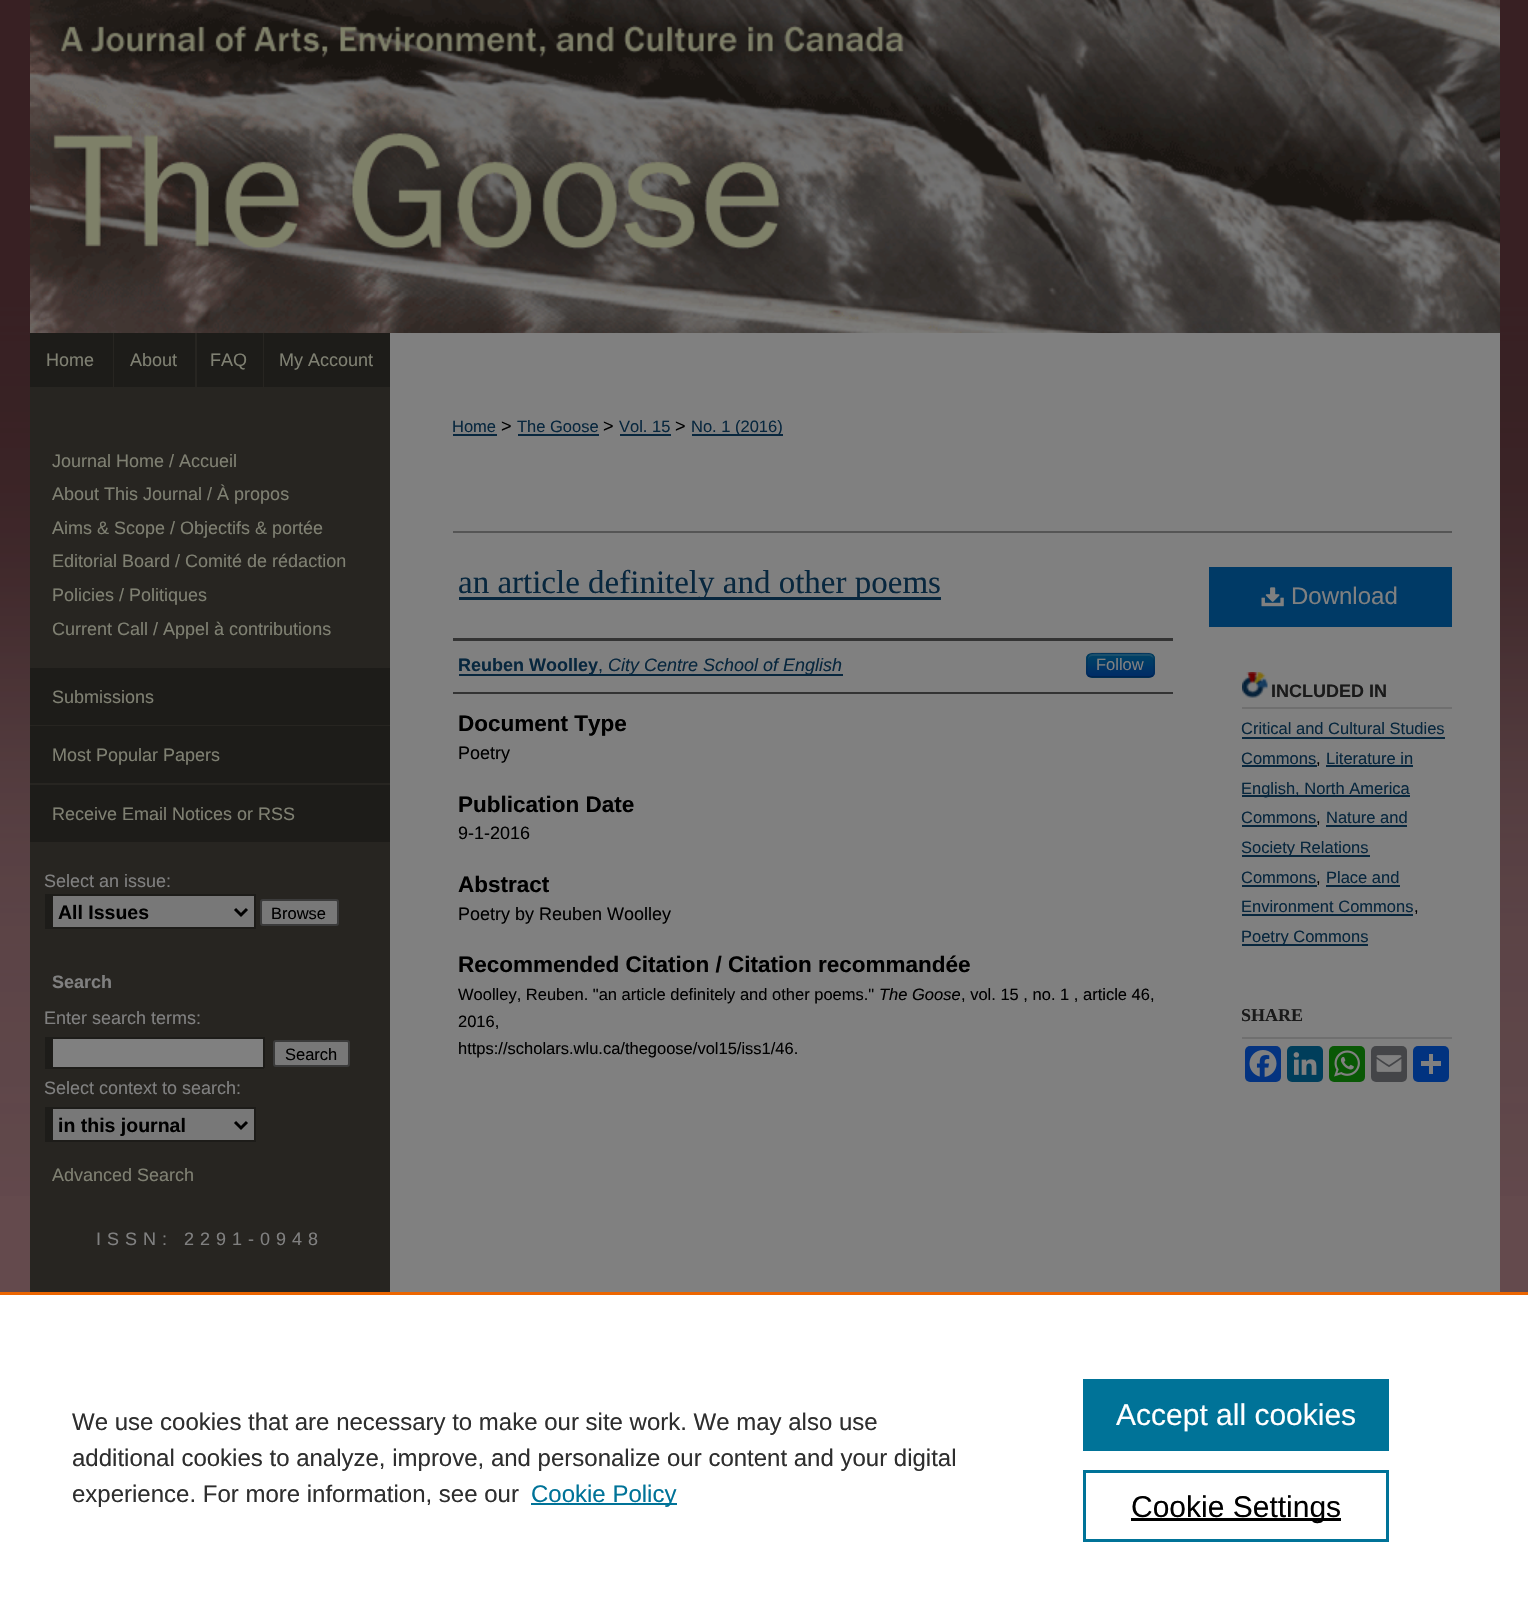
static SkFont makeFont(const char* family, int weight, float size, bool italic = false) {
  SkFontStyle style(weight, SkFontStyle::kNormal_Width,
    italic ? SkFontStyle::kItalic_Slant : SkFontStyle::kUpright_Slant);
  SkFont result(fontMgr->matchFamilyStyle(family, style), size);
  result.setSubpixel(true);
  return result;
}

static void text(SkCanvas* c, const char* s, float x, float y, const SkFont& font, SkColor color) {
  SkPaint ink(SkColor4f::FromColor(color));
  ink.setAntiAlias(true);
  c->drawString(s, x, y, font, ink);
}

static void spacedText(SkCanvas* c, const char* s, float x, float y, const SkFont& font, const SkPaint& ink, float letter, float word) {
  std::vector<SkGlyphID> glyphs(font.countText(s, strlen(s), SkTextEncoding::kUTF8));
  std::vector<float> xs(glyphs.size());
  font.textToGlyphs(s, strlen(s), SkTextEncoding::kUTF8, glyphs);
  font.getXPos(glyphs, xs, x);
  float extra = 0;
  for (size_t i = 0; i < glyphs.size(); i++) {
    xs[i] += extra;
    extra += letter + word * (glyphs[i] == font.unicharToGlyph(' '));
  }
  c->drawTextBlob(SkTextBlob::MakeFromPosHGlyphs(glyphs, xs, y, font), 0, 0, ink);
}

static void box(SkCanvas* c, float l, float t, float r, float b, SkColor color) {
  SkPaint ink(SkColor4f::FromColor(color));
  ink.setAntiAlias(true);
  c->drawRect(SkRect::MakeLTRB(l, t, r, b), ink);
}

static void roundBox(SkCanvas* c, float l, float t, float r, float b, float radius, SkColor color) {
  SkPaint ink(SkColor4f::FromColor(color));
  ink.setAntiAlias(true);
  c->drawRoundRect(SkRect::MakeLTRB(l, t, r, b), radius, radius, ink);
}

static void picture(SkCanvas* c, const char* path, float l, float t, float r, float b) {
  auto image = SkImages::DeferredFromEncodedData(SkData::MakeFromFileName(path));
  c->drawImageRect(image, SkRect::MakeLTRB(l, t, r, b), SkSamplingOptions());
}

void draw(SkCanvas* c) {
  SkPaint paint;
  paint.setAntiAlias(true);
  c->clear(0xff644a4d);
  picture(c, "img_01.png", 0, 0, 1528, 1196);
  picture(c, "img_02.png", 30, 0, 1500, 333);
  box(c, 390, 333, 1500, 1292, 0xff808080);
  box(c, 30, 333, 113, 387, 0xff1d1c19);
  box(c, 113, 333, 114, 387, 0xff272521);
  SkFont face1 = makeFont("Liberation Sans", 400, 18);
  text(c, "Home", 46, 366, face1, 0xff7f8072);
  box(c, 114, 333, 195, 387, 0xff1d1c19);
  box(c, 195, 333, 197, 387, 0xff272521);
  text(c, "About", 130, 366, face1, 0xff7f8072);
  box(c, 197, 333, 263, 387, 0xff1d1c19);
  box(c, 263, 333, 264, 387, 0xff272521);
  text(c, "FAQ", 210, 366, face1, 0xff7f8072);
  box(c, 264, 333, 390, 387, 0xff1d1c19);
  text(c, "My Account", 279, 366, face1, 0xff7f8072);
  box(c, 30, 387, 390, 1292, 0xff272521);
  text(c, "Journal Home / Accueil", 52, 467, face1, 0xff7f8072);
  text(c, "About This Journal / À propos", 52, 500, face1, 0xff7f8072);
  text(c, "Aims & Scope / Objectifs & portée", 52, 534, face1, 0xff7f8072);
  text(c, "Editorial Board / Comité de rédaction", 52, 567, face1, 0xff7f8072);
  text(c, "Policies / Politiques", 52, 601, face1, 0xff7f8072);
  text(c, "Current Call / Appel à contributions", 52, 635, face1, 0xff7f8072);
  box(c, 30, 668, 390, 725, 0xff1d1c19);
  text(c, "Submissions", 52, 703, face1, 0xff7f8072);
  box(c, 30, 726, 390, 783, 0xff1d1c19);
  text(c, "Most Popular Papers", 52, 761, face1, 0xff7f8072);
  box(c, 30, 785, 390, 842, 0xff1d1c19);
  text(c, "Receive Email Notices or RSS", 52, 820, face1, 0xff7f8072);
  text(c, "Select an issue:", 44, 887, face1, 0xff808080);
  box(c, 53, 896, 254, 927, 0xff787878);
  box(c, 45, 894, 255, 896, 0xff1d1c19);
  box(c, 254, 894, 256, 929, 0xff1d1c19);
  box(c, 45, 927, 255, 929, 0xff1d1c19);
  box(c, 45, 894, 53, 929, 0xff1d1c19);
  paint.setStyle(SkPaint::kStroke_Style);
  paint.setStrokeWidth(3);
  paint.setColor(0xff000000);
  c->drawPath(SkPathBuilder().moveTo(235, 909).lineTo(241, 915).lineTo(247, 909).detach(), paint);
  SkFont face2 = makeFont("Liberation Sans", 700, 19.5f);
  text(c, "All Issues", 58, 919, face2, 0xff000000);
  paint.setStyle(SkPaint::kFill_Style);
  paint.setColor(0xff787878);
  c->drawRoundRect(SkRect::MakeLTRB(261, 900, 338, 925), 2, 2, paint);
  paint.setStyle(SkPaint::kStroke_Style);
  paint.setStrokeWidth(2);
  paint.setColor(0xff3b3b3b);
  c->drawRoundRect(SkRect::MakeLTRB(261, 900, 338, 925), 2, 2, paint);
  SkFont face3 = makeFont("Liberation Sans", 400, 16.5f);
  text(c, "Browse", 271, 919, face3, 0xff000000);
  SkFont face4 = makeFont("Liberation Sans", 700, 18);
  text(c, "Search", 52, 988, face4, 0xff808080);
  text(c, "Enter search terms:", 44, 1024, face1, 0xff808080);
  box(c, 53, 1039, 263, 1067, 0xff808080);
  box(c, 45, 1037, 264, 1039, 0xff1d1c19);
  box(c, 263, 1037, 265, 1068, 0xff1d1c19);
  box(c, 45, 1067, 264, 1069, 0xff1d1c19);
  box(c, 45, 1037, 53, 1068, 0xff1d1c19);
  paint.setStyle(SkPaint::kFill_Style);
  paint.setColor(0xff787878);
  c->drawRoundRect(SkRect::MakeLTRB(274, 1041, 349, 1066), 2, 2, paint);
  paint.setStyle(SkPaint::kStroke_Style);
  paint.setColor(0xff3b3b3b);
  c->drawRoundRect(SkRect::MakeLTRB(274, 1041, 349, 1066), 2, 2, paint);
  text(c, "Search", 285, 1060, face3, 0xff000000);
  text(c, "Select context to search:", 44, 1094, face1, 0xff808080);
  box(c, 53, 1109, 254, 1140, 0xff787878);
  box(c, 45, 1107, 255, 1109, 0xff1d1c19);
  box(c, 254, 1107, 256, 1142, 0xff1d1c19);
  box(c, 45, 1140, 255, 1142, 0xff1d1c19);
  box(c, 45, 1107, 53, 1142, 0xff1d1c19);
  paint.setStrokeWidth(3);
  paint.setColor(0xff000000);
  c->drawPath(SkPathBuilder().moveTo(235, 1122).lineTo(241, 1128).lineTo(247, 1122).detach(), paint);
  text(c, "in this journal", 58, 1132, face2, 0xff000000);
  text(c, "Advanced Search", 52, 1181, face1, 0xff7f8072);
  paint.setStyle(SkPaint::kFill_Style);
  paint.setColor(0xff808080);
  spacedText(c, "ISSN: 2291-0948", 96, 1245, face1, paint, 6, 0);
  text(c, "Home", 452, 432, face3, 0xff08273e);
  box(c, 453, 434, 497, 436, 0xff08273e);
  text(c, ">", 501, 432, face1, 0xff000000);
  text(c, "The Goose", 517, 432, face3, 0xff08273e);
  box(c, 518, 434, 599, 436, 0xff08273e);
  text(c, ">", 603, 432, face1, 0xff000000);
  text(c, "Vol. 15", 619, 432, face3, 0xff08273e);
  box(c, 620, 434, 671, 436, 0xff08273e);
  text(c, ">", 675, 432, face1, 0xff000000);
  box(c, 692, 434, 783, 436, 0xff08273e);
  text(c, "No. 1 (2016)", 691, 432, face3, 0xff08273e);
  box(c, 453, 531, 1452, 533, 0xff555555);
  box(c, 459, 597, 941, 600, 0xff08273e);
  SkFont face5 = makeFont("Liberation Serif", 400, 33);
  text(c, "an article definitely and other poems", 458, 593, face5, 0xff08273e);
  box(c, 453, 638, 1173, 641, 0xff333333);
  box(c, 453, 692, 1173, 694, 0xff333333);
  box(c, 459, 674, 843, 676, 0xff08273e);
  text(c, "Reuben Woolley", 458, 671, face4, 0xff08273e);
  text(c, ",", 598, 671, face1, 0xff08273e);
  SkFont face6 = makeFont("Liberation Sans", 400, 18, true);
  text(c, "City Centre School of English", 608, 671, face6, 0xff08273e);
  roundBox(c, 1086, 653, 1155, 678, 6, 0xff003a66);
  c->save();
  c->clipPath(SkPathBuilder().moveTo(1092, 653).lineTo(1149, 653).cubicTo(1152.5f, 653, 1155, 655.5f, 1155, 659).lineTo(1155, 672).cubicTo(1155, 675.5f, 1152.5f, 678, 1149, 678).lineTo(1092, 678).cubicTo(1088.5f, 678, 1086, 675.5f, 1086, 672).lineTo(1086, 659).cubicTo(1086, 655.5f, 1088.5f, 653, 1092, 653).close().detach(), true);
  {
    const SkColor colors[] = {0xff004466, 0xff002b66};
    const float stops[] = {0, 1};
    const SkPoint ends[] = {{1121, 654}, {1121, 677}};
    paint.setShader(SkGradientShader::MakeLinear(ends, colors, stops, 2, SkTileMode::kClamp));
    paint.setAlpha(255);
  }
  c->drawRect(SkRect::MakeLTRB(1086, 654, 1155, 677), paint);
  c->restore();
  paint.setShader(nullptr);
  paint.setColor(0x33808080);
  c->drawPath(SkPathBuilder().moveTo(1092, 656).lineTo(1149, 656).cubicTo(1151, 656, 1154, 658, 1154, 660).cubicTo(1154, 652, 1146, 654, 1140, 654).lineTo(1102, 654).cubicTo(1096, 654, 1088, 652, 1088, 660).cubicTo(1088, 658, 1090, 656, 1092, 656).close().detach(), paint);
  paint.setStyle(SkPaint::kStroke_Style);
  paint.setStrokeWidth(1.5f);
  paint.setColor(0x40000000);
  c->drawPath(SkPathBuilder().moveTo(1152.5f, 675.5f).cubicTo(1151.5f, 676.5f, 1150.5f, 677, 1149, 677).lineTo(1092, 677).cubicTo(1090.5f, 677, 1089.5f, 676.5f, 1088.5f, 675.5f).detach(), paint);
  paint.setColor(0x1a000000);
  c->drawPath(SkPathBuilder().moveTo(1088.5f, 675.5f).cubicTo(1085.5f, 673, 1087, 668.5f, 1087, 665).cubicTo(1087, 652, 1087.5f, 653, 1101.5f, 653).lineTo(1139.5f, 653).cubicTo(1153.5f, 653, 1154, 652, 1154, 665).cubicTo(1154, 668.5f, 1155.5f, 673, 1152.5f, 675.5f).detach(), paint);
  text(c, "Follow", 1096, 670, face3, 0xff808080);
  SkFont face7 = makeFont("Liberation Sans", 700, 22.5f);
  text(c, "Document Type", 458, 731, face7, 0xff000000);
  text(c, "Poetry", 458, 759, face1, 0xff000000);
  text(c, "Publication Date", 458, 812, face7, 0xff000000);
  text(c, "9-1-2016", 458, 839, face1, 0xff000000);
  text(c, "Abstract", 458, 892, face7, 0xff000000);
  text(c, "Poetry by Reuben Woolley", 458, 920, face1, 0xff000000);
  text(c, "Recommended Citation / Citation recommandée", 458, 972, face7, 0xff000000);
  text(c, "Woolley, Reuben. \"an article definitely and other poems.\"", 458, 1000, face3, 0xff000000);
  SkFont face8 = makeFont("Liberation Sans", 400, 16.5f, true);
  text(c, "The Goose", 879, 1000, face8, 0xff000000);
  text(c, ", vol. 15 , no. 1 , article 46,", 961, 1000, face3, 0xff000000);
  text(c, "2016,", 458, 1027, face3, 0xff000000);
  text(c, "https://scholars.wlu.ca/thegoose/vol15/iss1/46.", 458, 1054, face3, 0xff000000);
  box(c, 1209, 567, 1452, 627, 0xff003a66);
  picture(c, "img_03.png", 1261, 587, 1284, 607);
  SkFont face9 = makeFont("Liberation Sans", 400, 24);
  text(c, "Download", 1291, 604, face9, 0xff808080);
  picture(c, "img_04.png", 1242, 672, 1268, 698);
  box(c, 1242, 707, 1452, 709, 0xff6f6f6f);
  text(c, "INCLUDED IN", 1271, 697, face4, 0xff1a1a1a);
  text(c, "Critical and Cultural Studies", 1241, 734, face3, 0xff08273e);
  box(c, 1242, 737, 1445, 739, 0xff08273e);
  text(c, "Commons", 1241, 764, face3, 0xff08273e);
  box(c, 1242, 765, 1317, 767, 0xff08273e);
  text(c, ",", 1316, 764, face3, 0xff000000);
  text(c, "Literature in", 1326, 764, face3, 0xff08273e);
  box(c, 1326, 765, 1413, 767, 0xff08273e);
  box(c, 1242, 795, 1410, 797, 0xff08273e);
  text(c, "English, North America", 1241, 794, face3, 0xff08273e);
  text(c, "Commons", 1241, 823, face3, 0xff08273e);
  box(c, 1242, 825, 1317, 827, 0xff08273e);
  text(c, ",", 1316, 823, face3, 0xff000000);
  text(c, "Nature and", 1326, 823, face3, 0xff08273e);
  box(c, 1326, 825, 1407, 827, 0xff08273e);
  box(c, 1242, 855, 1370, 857, 0xff08273e);
  text(c, "Society Relations", 1241, 853, face3, 0xff08273e);
  text(c, "Commons", 1241, 883, face3, 0xff08273e);
  box(c, 1242, 885, 1317, 887, 0xff08273e);
  text(c, ",", 1316, 883, face3, 0xff000000);
  text(c, "Place and", 1326, 883, face3, 0xff08273e);
  box(c, 1326, 885, 1400, 887, 0xff08273e);
  text(c, "Environment Commons", 1241, 912, face3, 0xff08273e);
  box(c, 1242, 914, 1413, 916, 0xff08273e);
  text(c, ",", 1414, 912, face3, 0xff000000);
  box(c, 1242, 944, 1368, 946, 0xff08273e);
  text(c, "Poetry Commons", 1241, 942, face3, 0xff08273e);
  box(c, 1242, 1037, 1452, 1039, 0xff6f6f6f);
  SkFont face10 = makeFont("Liberation Serif", 700, 18);
  text(c, "SHARE", 1241, 1021, face10, 0xff1a1a1a);
  roundBox(c, 1245, 1046, 1281, 1082, 5, 0xff043380);
  picture(c, "img_05.png", 1249, 1050, 1277, 1077);
  roundBox(c, 1287, 1046, 1323, 1082, 5, 0xff003e5b);
  picture(c, "img_06.png", 1293, 1052, 1317, 1075);
  roundBox(c, 1329, 1046, 1365, 1082, 5, 0xff095805);
  picture(c, "img_07.png", 1334, 1050, 1360, 1077);
  roundBox(c, 1371, 1046, 1407, 1082, 5, 0xff444548);
  picture(c, "img_08.png", 1376, 1055, 1402, 1072);
  roundBox(c, 1413, 1046, 1449, 1082, 5, 0xff013380);
  box(c, 1429, 1054, 1433, 1074, 0xff808080);
  box(c, 1421, 1061, 1441, 1066, 0xff808080);
  box(c, 0, 1295, 1528, 1621, 0xffffffff);
  box(c, 0, 1292, 1528, 1295, 0xffeb6500);
  text(c, "We use cookies that are necessary to make our site work. We may also use", 72, 1430, face9, 0xff2e2e2e);
  text(c, "additional cookies to analyze, improve, and personalize our content and your digital", 72, 1466, face9, 0xff2e2e2e);
  text(c, "experience. For more information, see our", 72, 1502, face9, 0xff2e2e2e);
  box(c, 531, 1503, 677, 1505, 0xff007398);
  text(c, "Cookie Policy", 531, 1502, face9, 0xff007398);
  box(c, 1083, 1379, 1389, 1451, 0xff007398);
  SkFont face11 = makeFont("Liberation Sans", 400, 30);
  text(c, "Accept all cookies", 1116, 1425, face11, 0xffffffff);
  paint.setStrokeWidth(3);
  paint.setColor(0xff007398);
  c->drawRect(SkRect::MakeLTRB(1084.5f, 1471.5f, 1387.5f, 1540.5f), paint);
  box(c, 1131, 1518, 1341, 1521, 0xff000000);
  text(c, "Cookie Settings", 1131, 1517, face11, 0xff000000);
}
